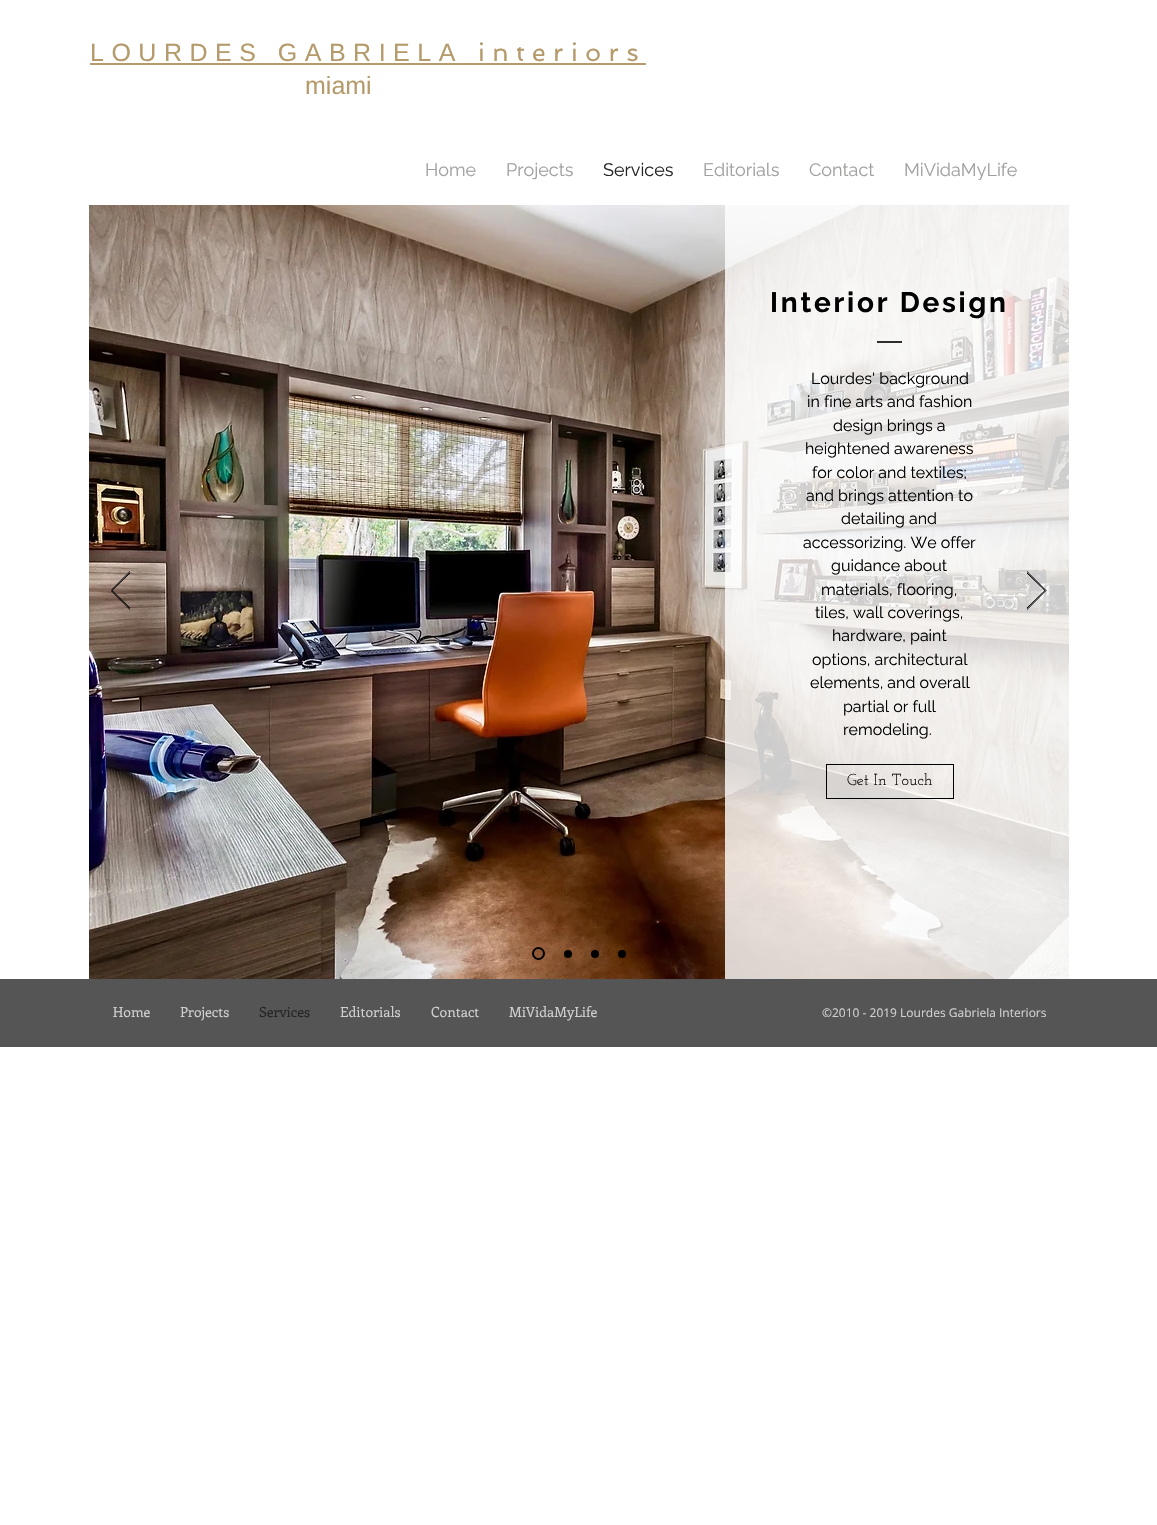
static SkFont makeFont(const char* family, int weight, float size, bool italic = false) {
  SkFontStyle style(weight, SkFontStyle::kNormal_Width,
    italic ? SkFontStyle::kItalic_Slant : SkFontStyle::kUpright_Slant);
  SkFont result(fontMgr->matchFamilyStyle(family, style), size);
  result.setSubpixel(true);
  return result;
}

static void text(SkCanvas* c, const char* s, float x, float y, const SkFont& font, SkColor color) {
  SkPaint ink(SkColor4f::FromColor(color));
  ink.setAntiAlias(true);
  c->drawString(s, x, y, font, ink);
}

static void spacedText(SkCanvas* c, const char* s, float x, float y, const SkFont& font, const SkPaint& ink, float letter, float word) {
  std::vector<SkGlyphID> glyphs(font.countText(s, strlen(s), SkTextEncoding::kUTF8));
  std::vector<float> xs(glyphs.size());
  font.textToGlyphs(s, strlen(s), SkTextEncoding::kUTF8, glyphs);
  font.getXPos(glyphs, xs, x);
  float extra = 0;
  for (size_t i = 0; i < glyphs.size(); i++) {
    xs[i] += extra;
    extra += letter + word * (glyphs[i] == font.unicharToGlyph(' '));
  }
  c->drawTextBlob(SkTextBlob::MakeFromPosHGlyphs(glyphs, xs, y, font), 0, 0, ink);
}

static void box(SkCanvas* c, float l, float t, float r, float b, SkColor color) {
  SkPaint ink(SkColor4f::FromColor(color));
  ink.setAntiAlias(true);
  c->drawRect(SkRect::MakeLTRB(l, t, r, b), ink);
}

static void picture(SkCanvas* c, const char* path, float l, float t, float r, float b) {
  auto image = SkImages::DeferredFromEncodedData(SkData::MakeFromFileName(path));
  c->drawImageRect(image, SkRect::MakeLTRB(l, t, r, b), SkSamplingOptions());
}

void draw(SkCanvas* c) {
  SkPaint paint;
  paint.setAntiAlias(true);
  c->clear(0xffffffff);
  SkFont face1 = makeFont("Liberation Sans", 400, 25);
  paint.setColor(0xffb59b6b);
  spacedText(c, "LOURDES GABRIELA", 90, 61, face1, paint, 7.5f, 0);
  box(c, 90, 63, 646, 65, 0xffb59b6b);
  SkFont face2 = makeFont("Spinnaker", 400, 25);
  spacedText(c, "interiors", 478, 61, face2, paint, 7.5f, 0);
  text(c, "miami", 305, 94, face1, 0xffb59b6b);
  SkFont face3 = makeFont("Raleway", 400, 18);
  text(c, "Home", 425, 176, face3, 0xffa0a09f);
  text(c, "Projects", 506, 176, face3, 0xffa0a09f);
  text(c, "Services", 603, 176, face3, 0xff242424);
  text(c, "Editorials", 703, 176, face3, 0xffa0a09f);
  text(c, "Contact", 809, 176, face3, 0xffa0a09f);
  text(c, "MiVidaMyLife", 904, 176, face3, 0xffa0a09f);
  picture(c, "img_01.png", 89, 205, 1069, 979);
  c->save();
  c->clipRect(SkRect::MakeLTRB(111, 571, 130, 610));
  paint.setStyle(SkPaint::kStroke_Style);
  paint.setStrokeWidth(1);
  paint.setColor(0xff000000);
  c->drawPath(SkPathBuilder().moveTo(130.5f, 610).lineTo(111, 590.5f).lineTo(130.5f, 571).lineTo(131, 572).lineTo(112, 590.5f).lineTo(131, 609).close().detach(), paint);
  c->restore();
  box(c, 725, 205, 1069, 979, 0xccffffff);
  SkFont face4 = makeFont("Raleway", 700, 28);
  paint.setStyle(SkPaint::kFill_Style);
  spacedText(c, "Interior Design", 770, 312, face4, paint, 2.75f, 0);
  box(c, 877, 341, 902, 343, 0xff2f2e2e);
  SkFont face5 = makeFont("Raleway", 400, 16);
  text(c, "Lourdes' background", 811, 384, face5, 0xff000000);
  text(c, "in fine arts and fashion", 807, 407, face5, 0xff000000);
  text(c, "design brings a", 833, 431, face5, 0xff000000);
  text(c, "heightened awareness", 805, 454, face5, 0xff000000);
  text(c, "for color and textiles;", 812, 478, face5, 0xff000000);
  text(c, "and brings attention to", 806, 501, face5, 0xff000000);
  text(c, "detailing and", 841, 524, face5, 0xff000000);
  text(c, "accessorizing. We offer", 803, 548, face5, 0xff000000);
  text(c, "guidance about", 831, 571, face5, 0xff000000);
  text(c, "materials, flooring,", 821, 595, face5, 0xff000000);
  text(c, "tiles, wall coverings,", 815, 618, face5, 0xff000000);
  text(c, "hardware, paint", 832, 641, face5, 0xff000000);
  text(c, "options, architectural", 812, 665, face5, 0xff000000);
  text(c, "elements, and overall", 810, 688, face5, 0xff000000);
  text(c, "partial or full", 843, 712, face5, 0xff000000);
  text(c, "remodeling.", 843, 735, face5, 0xff000000);
  paint.setStyle(SkPaint::kStroke_Style);
  c->drawRect(SkRect::MakeLTRB(826.5f, 764.5f, 953.5f, 798.5f), paint);
  SkFont face6 = makeFont("Josefin Slab", 400, 16);
  text(c, "Get In Touch", 847, 785, face6, 0xff000000);
  c->save();
  c->clipRect(SkRect::MakeLTRB(1027, 571, 1047, 610));
  c->drawPath(SkPathBuilder().moveTo(1026.5f, 610).lineTo(1046, 590.5f).lineTo(1026.5f, 571).lineTo(1026, 572).lineTo(1045, 590.5f).lineTo(1026, 609).close().detach(), paint);
  c->restore();
  paint.setStrokeWidth(2);
  c->drawCircle(538.5f, 953.5f, 5.5f, paint);
  paint.setStyle(SkPaint::kFill_Style);
  c->drawCircle(568, 954, 4, paint);
  c->drawCircle(595, 954, 4, paint);
  c->drawCircle(622, 954, 4, paint);
  box(c, 0, 979, 1157, 1047, 0xff555555);
  SkFont face7 = makeFont("Enriqueta", 400, 14);
  text(c, "Home", 113, 1017, face7, 0xffd1d1d1);
  text(c, "Projects", 180, 1017, face7, 0xffd1d1d1);
  text(c, "Services", 259, 1017, face7, 0xff242424);
  text(c, "Editorials", 340, 1017, face7, 0xffd1d1d1);
  text(c, "Contact", 431, 1017, face7, 0xffd1d1d1);
  text(c, "MiVidaMyLife", 509, 1017, face7, 0xffd1d1d1);
  SkFont face8 = makeFont("Open Sans", 400, 12);
  text(c, "©2010 - 2019 Lourdes Gabriela Interiors", 822, 1017, face8, 0xffd1d1d1);
}
